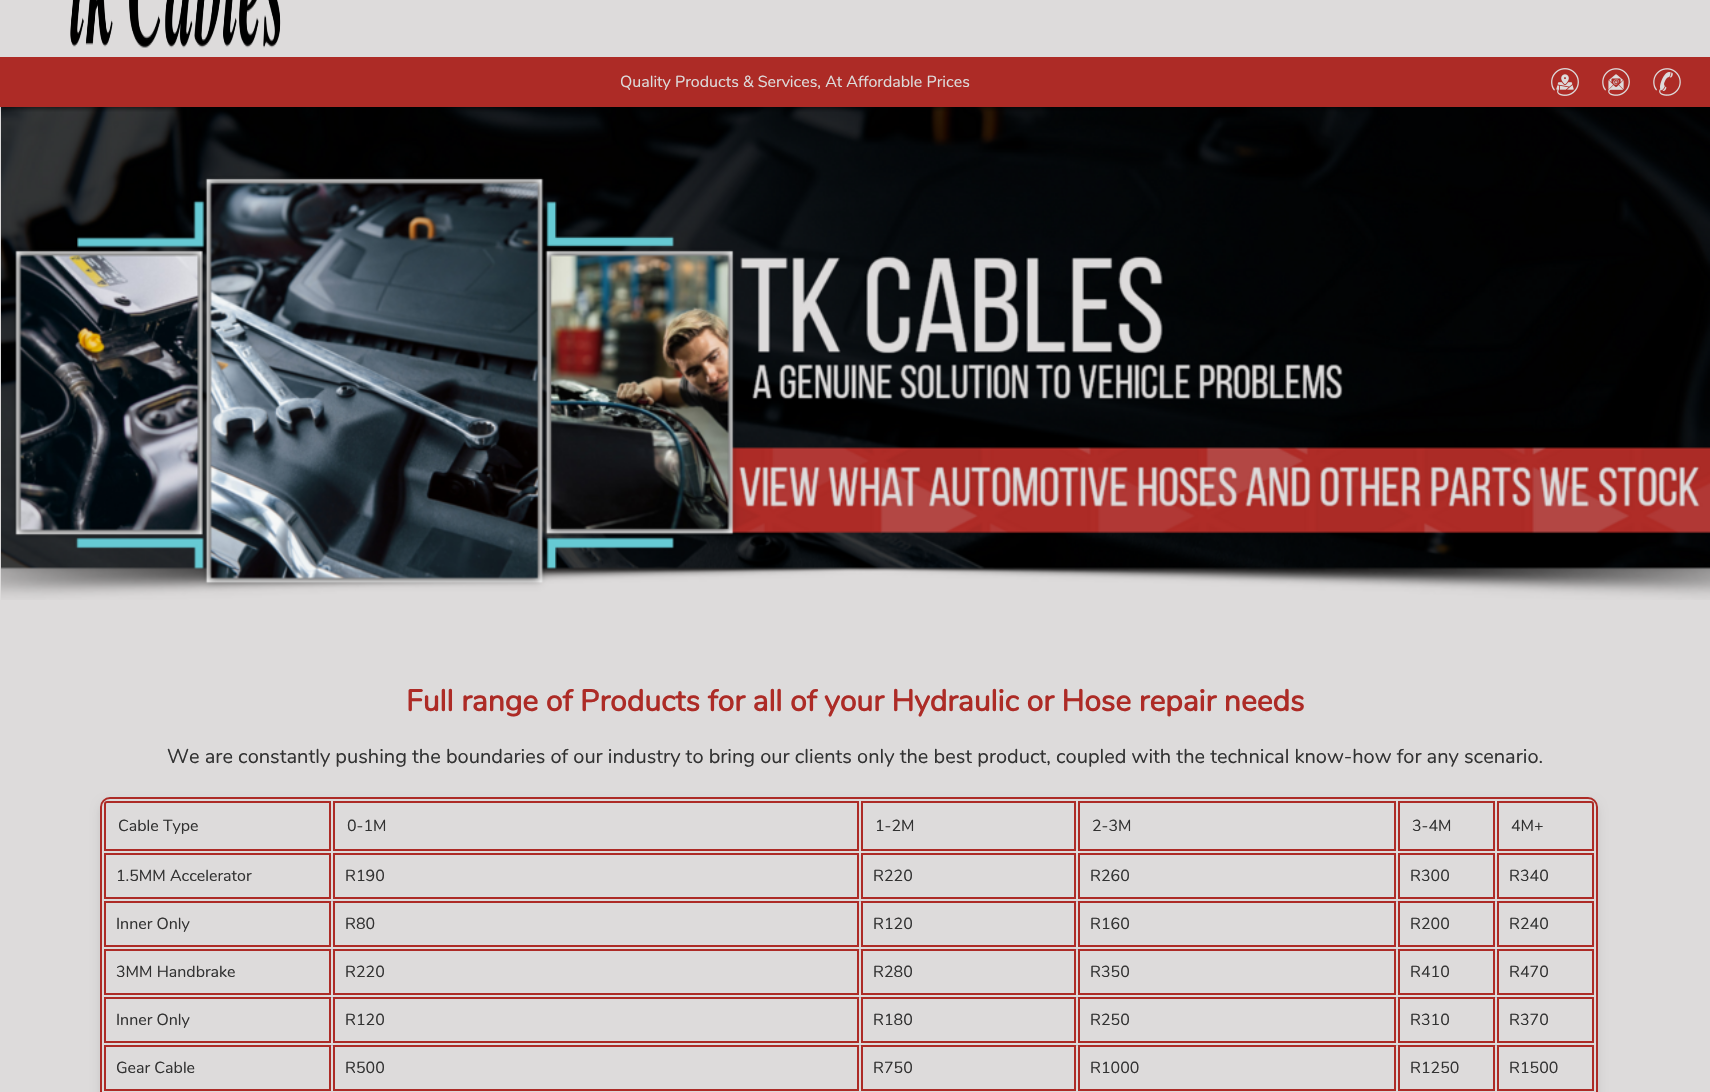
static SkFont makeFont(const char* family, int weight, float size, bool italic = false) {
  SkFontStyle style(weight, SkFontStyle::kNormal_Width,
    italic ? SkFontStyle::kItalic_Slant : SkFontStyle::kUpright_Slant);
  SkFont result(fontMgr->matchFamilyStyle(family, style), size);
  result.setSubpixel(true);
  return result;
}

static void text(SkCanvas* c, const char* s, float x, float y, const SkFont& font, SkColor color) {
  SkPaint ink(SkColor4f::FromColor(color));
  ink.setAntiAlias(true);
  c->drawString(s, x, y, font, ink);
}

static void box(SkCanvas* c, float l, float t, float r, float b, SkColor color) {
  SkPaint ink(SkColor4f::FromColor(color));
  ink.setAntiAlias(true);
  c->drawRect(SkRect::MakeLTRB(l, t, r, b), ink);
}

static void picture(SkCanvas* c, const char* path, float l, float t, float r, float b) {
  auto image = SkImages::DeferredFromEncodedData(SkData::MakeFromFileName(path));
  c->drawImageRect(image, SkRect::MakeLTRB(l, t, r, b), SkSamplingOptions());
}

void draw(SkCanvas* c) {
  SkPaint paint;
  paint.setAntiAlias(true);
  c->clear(0xffdddbdb);
  picture(c, "img_05.png", 1, 107, 1710, 600);
  c->save();
  c->clipRect(SkRect::MakeLTRB(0, 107, 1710, 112));
  paint.setColor(0x80000000);
  paint.setMaskFilter(SkMaskFilter::MakeBlur(kNormal_SkBlurStyle, 2));
  c->drawRect(SkRect::MakeLTRB(2, -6, 1708, 109), paint);
  paint.setMaskFilter(nullptr);
  c->restore();
  picture(c, "img_01.png", 70, 0, 281, 48);
  box(c, 0, 57, 1710, 107, 0xffad2b26);
  SkFont face1 = makeFont("Nunito", 400, 16);
  text(c, "Quality Products & Services, At Affordable Prices", 620, 87, face1, 0xffdddbdb);
  picture(c, "img_02.png", 1551, 68, 1579, 96);
  picture(c, "img_03.png", 1602, 68, 1630, 96);
  picture(c, "img_04.png", 1653, 68, 1681, 96);
  SkFont face2 = makeFont("Nunito", 700, 30);
  text(c, "Full range of Products for all of your Hydraulic or Hose repair needs", 406, 711, face2, 0xffad2b26);
  SkFont face3 = makeFont("Nunito", 400, 20);
  text(c, "We are constantly pushing the boundaries of our industry to bring our clients only the best product, coupled with the technical know-how for any scenario.", 167, 763, face3, 0xff323232);
  c->save();
  c->clipPath(SkPathBuilder(SkPathFillType::kEvenOdd).moveTo(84, 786).lineTo(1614, 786).lineTo(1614, 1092).lineTo(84, 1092).close().moveTo(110, 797).lineTo(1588, 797).cubicTo(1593.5f, 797, 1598, 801.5f, 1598, 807).lineTo(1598, 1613).cubicTo(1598, 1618.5f, 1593.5f, 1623, 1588, 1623).lineTo(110, 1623).cubicTo(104.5f, 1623, 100, 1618.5f, 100, 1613).lineTo(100, 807).cubicTo(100, 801.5f, 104.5f, 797, 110, 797).close().detach(), true);
  paint.setColor(0x1a000000);
  paint.setMaskFilter(SkMaskFilter::MakeBlur(kNormal_SkBlurStyle, 5));
  c->drawRoundRect(SkRect::MakeLTRB(100, 802, 1598, 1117), 10, 10, paint);
  paint.setMaskFilter(nullptr);
  c->restore();
  paint.setStyle(SkPaint::kStroke_Style);
  paint.setStrokeWidth(2);
  paint.setColor(0xffad2b26);
  c->drawRoundRect(SkRect::MakeLTRB(101, 798, 1597, 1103), 9, 9, paint);
  c->drawPath(SkPathBuilder().moveTo(107, 802).lineTo(330, 802).lineTo(330, 850).lineTo(105, 850).lineTo(105, 804).cubicTo(105, 803, 106, 802, 107, 802).close().detach(), paint);
  text(c, "Cable Type", 118, 831, face1, 0xff323232);
  c->drawRect(SkRect::MakeLTRB(334, 802, 858, 850), paint);
  text(c, "0-1M", 347, 831, face1, 0xff323232);
  c->drawRect(SkRect::MakeLTRB(862, 802, 1075, 850), paint);
  text(c, "1-2M", 875, 831, face1, 0xff323232);
  c->drawRect(SkRect::MakeLTRB(1079, 802, 1395, 850), paint);
  text(c, "2-3M", 1092, 831, face1, 0xff323232);
  c->drawRect(SkRect::MakeLTRB(1399, 802, 1494, 850), paint);
  text(c, "3-4M", 1412, 831, face1, 0xff323232);
  c->drawPath(SkPathBuilder().moveTo(1498, 802).lineTo(1591, 802).cubicTo(1592, 802, 1593, 803, 1593, 804).lineTo(1593, 850).lineTo(1498, 850).close().detach(), paint);
  text(c, "4M+", 1511, 831, face1, 0xff323232);
  c->drawRect(SkRect::MakeLTRB(105, 854, 330, 898), paint);
  text(c, "1.5MM Accelerator", 116, 881, face1, 0xff323232);
  c->drawRect(SkRect::MakeLTRB(334, 854, 858, 898), paint);
  text(c, "R190", 345, 881, face1, 0xff323232);
  c->drawRect(SkRect::MakeLTRB(862, 854, 1075, 898), paint);
  text(c, "R220", 873, 881, face1, 0xff323232);
  c->drawRect(SkRect::MakeLTRB(1079, 854, 1395, 898), paint);
  text(c, "R260", 1090, 881, face1, 0xff323232);
  c->drawRect(SkRect::MakeLTRB(1399, 854, 1494, 898), paint);
  text(c, "R300", 1410, 881, face1, 0xff323232);
  c->drawRect(SkRect::MakeLTRB(1498, 854, 1593, 898), paint);
  text(c, "R340", 1509, 881, face1, 0xff323232);
  box(c, 331, 901, 1497, 902, 0xffc1c3d1);
  c->drawRect(SkRect::MakeLTRB(105, 902, 330, 946), paint);
  text(c, "Inner Only", 116, 929, face1, 0xff323232);
  c->drawRect(SkRect::MakeLTRB(334, 902, 858, 946), paint);
  text(c, "R80", 345, 929, face1, 0xff323232);
  c->drawRect(SkRect::MakeLTRB(862, 902, 1075, 946), paint);
  text(c, "R120", 873, 929, face1, 0xff323232);
  c->drawRect(SkRect::MakeLTRB(1079, 902, 1395, 946), paint);
  text(c, "R160", 1090, 929, face1, 0xff323232);
  c->drawRect(SkRect::MakeLTRB(1399, 902, 1494, 946), paint);
  text(c, "R200", 1410, 929, face1, 0xff323232);
  c->drawRect(SkRect::MakeLTRB(1498, 902, 1593, 946), paint);
  text(c, "R240", 1509, 929, face1, 0xff323232);
  box(c, 331, 949, 1497, 950, 0xffc1c3d1);
  c->drawRect(SkRect::MakeLTRB(105, 950, 330, 994), paint);
  text(c, "3MM Handbrake", 116, 977, face1, 0xff323232);
  c->drawRect(SkRect::MakeLTRB(334, 950, 858, 994), paint);
  text(c, "R220", 345, 977, face1, 0xff323232);
  c->drawRect(SkRect::MakeLTRB(862, 950, 1075, 994), paint);
  text(c, "R280", 873, 977, face1, 0xff323232);
  c->drawRect(SkRect::MakeLTRB(1079, 950, 1395, 994), paint);
  text(c, "R350", 1090, 977, face1, 0xff323232);
  c->drawRect(SkRect::MakeLTRB(1399, 950, 1494, 994), paint);
  text(c, "R410", 1410, 977, face1, 0xff323232);
  c->drawRect(SkRect::MakeLTRB(1498, 950, 1593, 994), paint);
  text(c, "R470", 1509, 977, face1, 0xff323232);
  box(c, 331, 997, 1497, 998, 0xffc1c3d1);
  c->drawRect(SkRect::MakeLTRB(105, 998, 330, 1042), paint);
  text(c, "Inner Only", 116, 1025, face1, 0xff323232);
  c->drawRect(SkRect::MakeLTRB(334, 998, 858, 1042), paint);
  text(c, "R120", 345, 1025, face1, 0xff323232);
  c->drawRect(SkRect::MakeLTRB(862, 998, 1075, 1042), paint);
  text(c, "R180", 873, 1025, face1, 0xff323232);
  c->drawRect(SkRect::MakeLTRB(1079, 998, 1395, 1042), paint);
  text(c, "R250", 1090, 1025, face1, 0xff323232);
  c->drawRect(SkRect::MakeLTRB(1399, 998, 1494, 1042), paint);
  text(c, "R310", 1410, 1025, face1, 0xff323232);
  c->drawRect(SkRect::MakeLTRB(1498, 998, 1593, 1042), paint);
  text(c, "R370", 1509, 1025, face1, 0xff323232);
  box(c, 331, 1045, 1497, 1046, 0xffc1c3d1);
  c->drawRect(SkRect::MakeLTRB(105, 1046, 330, 1090), paint);
  text(c, "Gear Cable", 116, 1073, face1, 0xff323232);
  c->drawRect(SkRect::MakeLTRB(334, 1046, 858, 1090), paint);
  text(c, "R500", 345, 1073, face1, 0xff323232);
  c->drawRect(SkRect::MakeLTRB(862, 1046, 1075, 1090), paint);
  text(c, "R750", 873, 1073, face1, 0xff323232);
  c->drawRect(SkRect::MakeLTRB(1079, 1046, 1395, 1090), paint);
  text(c, "R1000", 1090, 1073, face1, 0xff323232);
  c->drawRect(SkRect::MakeLTRB(1399, 1046, 1494, 1090), paint);
  text(c, "R1250", 1410, 1073, face1, 0xff323232);
  c->drawRect(SkRect::MakeLTRB(1498, 1046, 1593, 1090), paint);
  text(c, "R1500", 1509, 1073, face1, 0xff323232);
}
